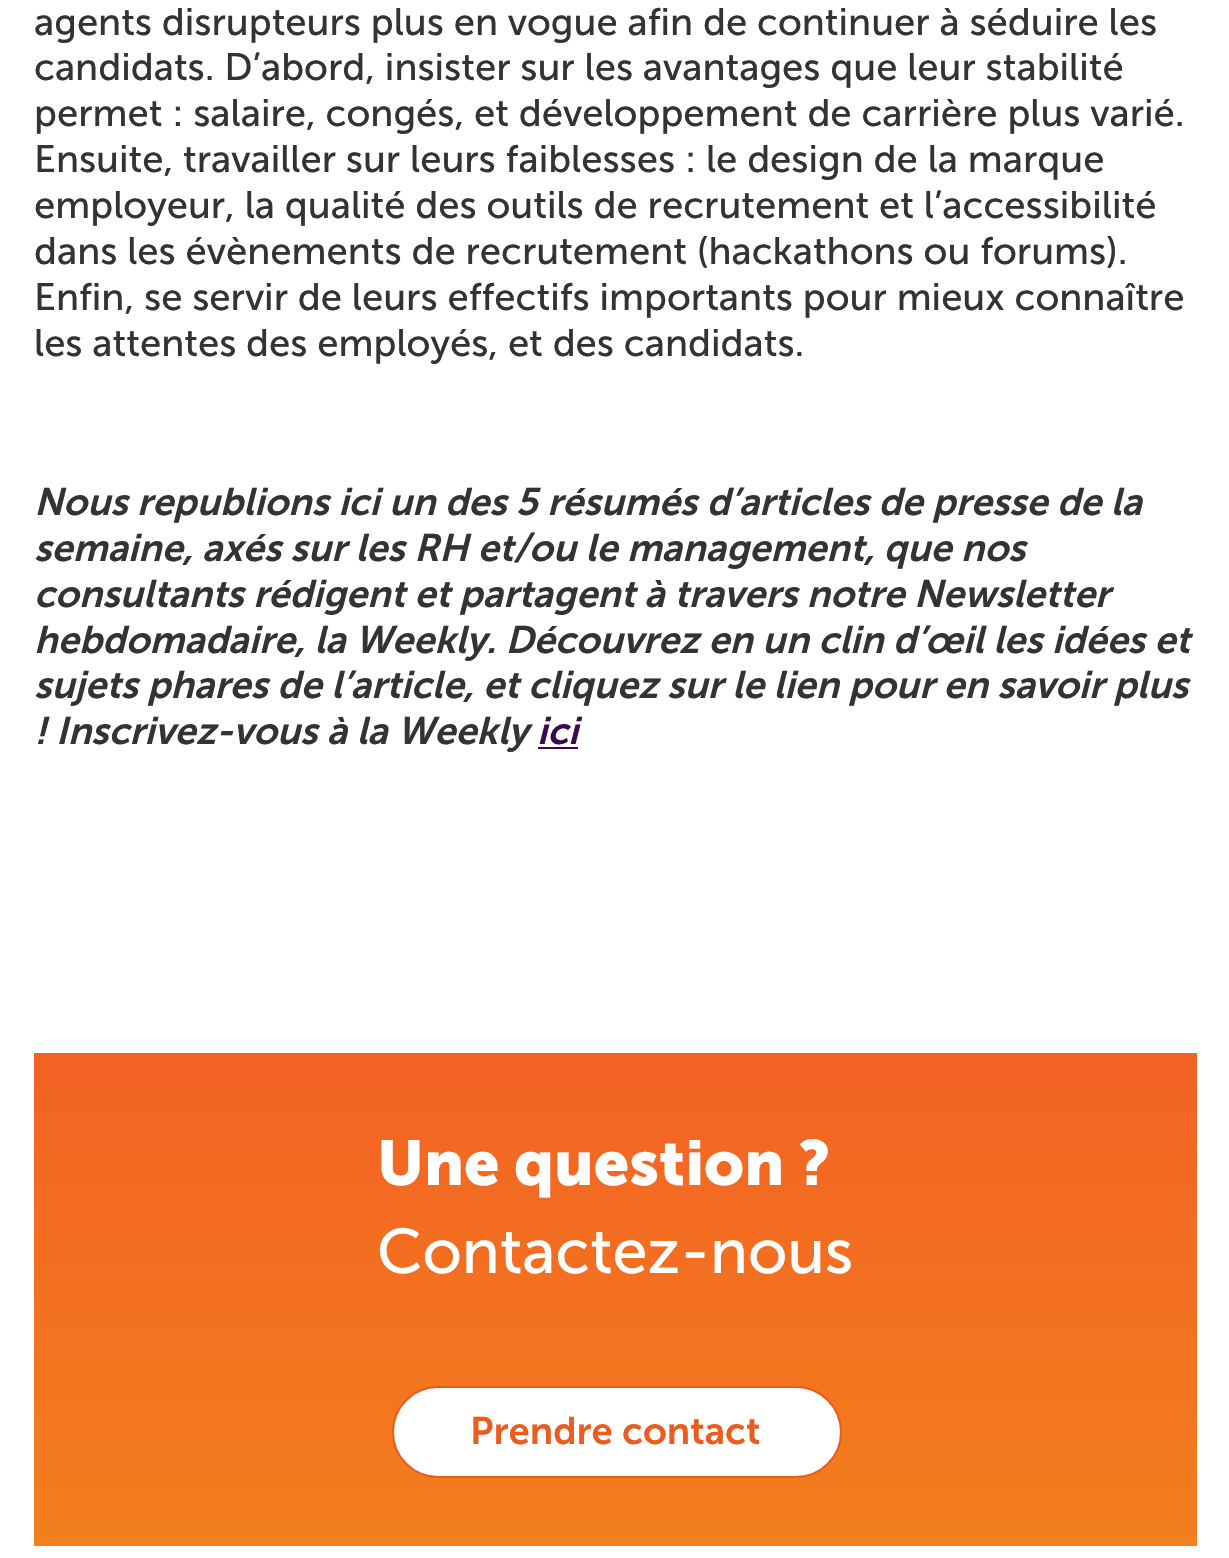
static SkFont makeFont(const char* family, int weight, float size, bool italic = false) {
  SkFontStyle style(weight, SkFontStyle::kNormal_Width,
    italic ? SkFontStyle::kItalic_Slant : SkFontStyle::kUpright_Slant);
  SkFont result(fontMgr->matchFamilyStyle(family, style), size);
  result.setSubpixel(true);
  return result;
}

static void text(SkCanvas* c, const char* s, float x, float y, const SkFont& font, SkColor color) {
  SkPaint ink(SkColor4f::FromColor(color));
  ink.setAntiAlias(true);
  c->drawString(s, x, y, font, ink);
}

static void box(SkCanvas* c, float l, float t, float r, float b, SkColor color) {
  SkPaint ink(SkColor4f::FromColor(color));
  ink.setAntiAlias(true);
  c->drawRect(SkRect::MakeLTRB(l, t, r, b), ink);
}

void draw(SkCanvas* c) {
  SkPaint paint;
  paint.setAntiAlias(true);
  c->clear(0xffffffff);
  SkFont face1 = makeFont("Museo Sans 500", 400, 38.25f);
  text(c, "agents disrupteurs plus en vogue afin de continuer à séduire les", 34, 35, face1, 0xff333333);
  text(c, "candidats. D’abord, insister sur les avantages que leur stabilité", 34, 80, face1, 0xff333333);
  text(c, "permet : salaire, congés, et développement de carrière plus varié.", 34, 126, face1, 0xff333333);
  text(c, "Ensuite, travailler sur leurs faiblesses : le design de la marque", 34, 172, face1, 0xff333333);
  text(c, "employeur, la qualité des outils de recrutement et l’accessibilité", 34, 218, face1, 0xff333333);
  text(c, "dans les évènements de recrutement (hackathons ou forums).", 34, 264, face1, 0xff333333);
  text(c, "Enfin, se servir de leurs effectifs importants pour mieux connaître", 34, 310, face1, 0xff333333);
  text(c, "les attentes des employés, et des candidats.", 34, 356, face1, 0xff333333);
  SkFont face2 = makeFont("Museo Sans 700", 600, 38.25f, true);
  text(c, "Nous republions ici un des 5 résumés d’articles de presse de la", 34, 515, face2, 0xff333333);
  text(c, "semaine, axés sur les RH et/ou le management, que nos", 34, 561, face2, 0xff333333);
  text(c, "consultants rédigent et partagent à travers notre Newsletter", 34, 607, face2, 0xff333333);
  text(c, "hebdomadaire, la Weekly. Découvrez en un clin d’œil les idées et", 34, 653, face2, 0xff333333);
  text(c, "sujets phares de l’article, et cliquez sur le lien pour en savoir plus", 34, 698, face2, 0xff333333);
  text(c, "! Inscrivez-vous à la Weekly", 34, 744, face2, 0xff333333);
  box(c, 538, 747, 578, 749, 0xff3b094e);
  text(c, "ici", 537, 744, face2, 0xff3b094e);
  {
    const SkColor colors[] = {0xfff36224, 0xfff37f1d};
    const float stops[] = {0, 1};
    const SkPoint ends[] = {{615, 1053}, {615, 1546}};
    paint.setShader(SkGradientShader::MakeLinear(ends, colors, stops, 2, SkTileMode::kClamp));
    paint.setAlpha(255);
  }
  c->drawRect(SkRect::MakeLTRB(34, 1053, 1197, 1546), paint);
  SkFont face3 = makeFont("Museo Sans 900", 700, 63);
  text(c, "Une question ?", 377, 1185, face3, 0xffffffff);
  SkFont face4 = makeFont("Museo Sans 500", 400, 63);
  text(c, "Contactez-nous", 377, 1273, face4, 0xffffffff);
  paint.setShader(nullptr);
  paint.setColor(0xffffffff);
  c->drawRoundRect(SkRect::MakeLTRB(393, 1387, 841, 1477), 45, 45, paint);
  paint.setStyle(SkPaint::kStroke_Style);
  paint.setStrokeWidth(2);
  paint.setColor(0xffea5c20);
  c->drawRoundRect(SkRect::MakeLTRB(393, 1387, 841, 1477), 45, 45, paint);
  SkFont face5 = makeFont("Museo Sans 700", 600, 38.25f);
  text(c, "Prendre contact", 470, 1444, face5, 0xffea5c20);
}
